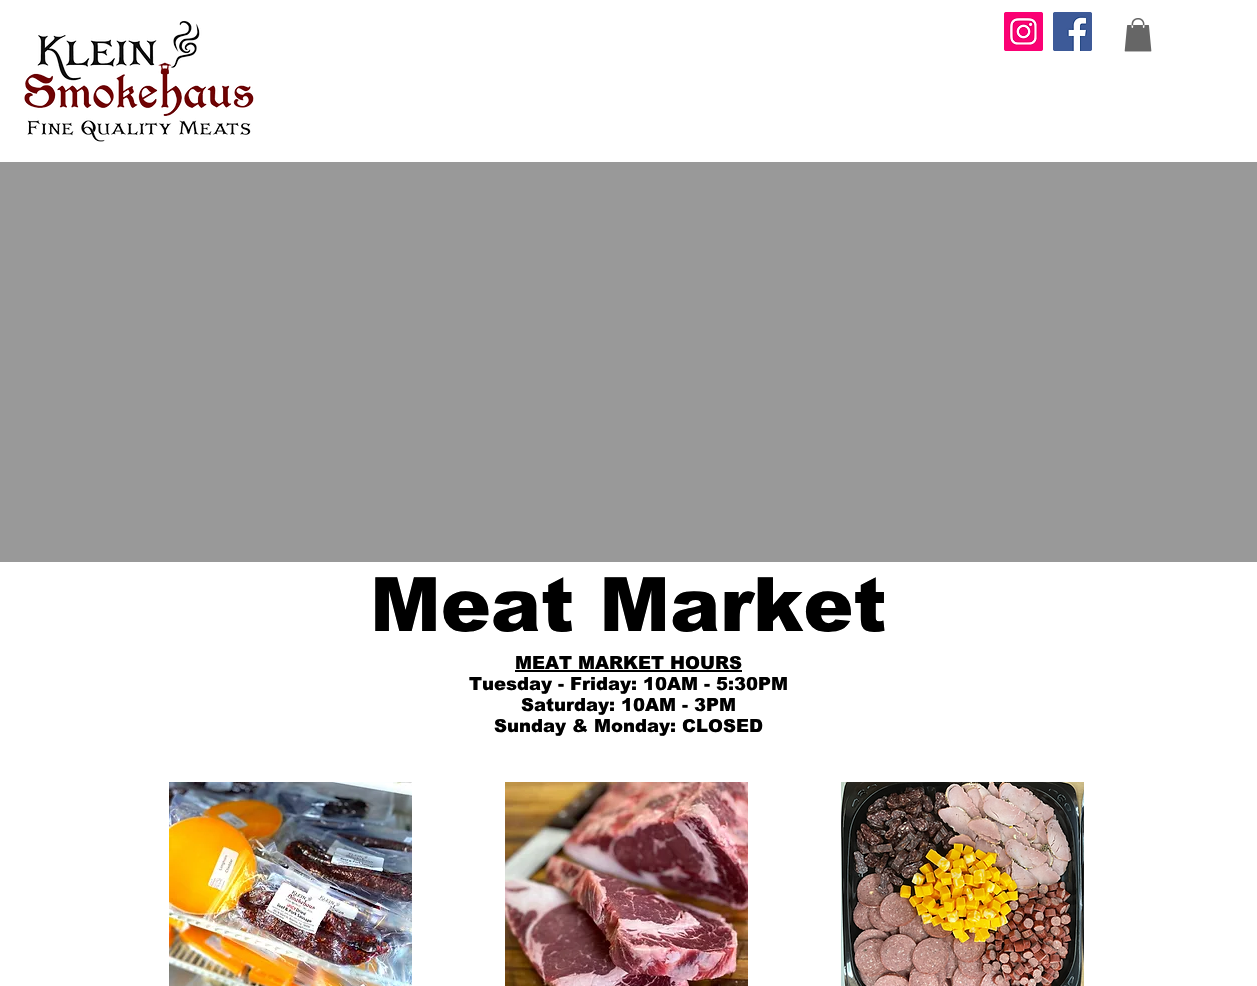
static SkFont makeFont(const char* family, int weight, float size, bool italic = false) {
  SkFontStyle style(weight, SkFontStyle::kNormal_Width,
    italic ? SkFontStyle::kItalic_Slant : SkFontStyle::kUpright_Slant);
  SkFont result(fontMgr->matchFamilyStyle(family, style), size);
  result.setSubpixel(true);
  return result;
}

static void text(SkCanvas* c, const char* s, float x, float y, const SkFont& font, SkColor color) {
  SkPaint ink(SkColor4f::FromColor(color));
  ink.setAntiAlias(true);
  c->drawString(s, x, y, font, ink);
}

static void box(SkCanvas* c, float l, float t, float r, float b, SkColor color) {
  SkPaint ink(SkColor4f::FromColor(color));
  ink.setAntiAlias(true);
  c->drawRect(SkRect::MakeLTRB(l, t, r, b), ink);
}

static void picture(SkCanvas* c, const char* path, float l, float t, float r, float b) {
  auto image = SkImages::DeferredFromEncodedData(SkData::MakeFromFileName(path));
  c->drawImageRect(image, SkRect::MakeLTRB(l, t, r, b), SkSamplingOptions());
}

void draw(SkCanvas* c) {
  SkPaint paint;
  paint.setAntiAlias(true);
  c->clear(0xffffffff);
  picture(c, "img_01.png", 24, 20, 254, 142);
  picture(c, "img_02.png", 1004, 12, 1043, 51);
  picture(c, "img_03.png", 1053, 12, 1092, 51);
  picture(c, "img_04.png", 1124, 18, 1152, 52);
  box(c, 0, 162, 1257, 562, 0xff999999);
  SkFont face1 = makeFont("arial", 900, 75);
  text(c, "Meat Market", 370, 631, face1, 0xff000000);
  SkFont face2 = makeFont("arial", 900, 18);
  text(c, "MEAT MARKET HOURS", 515, 669, face2, 0xff000000);
  box(c, 515, 670, 742, 672, 0xff000000);
  text(c, "Tuesday - Friday: 10AM - 5:30PM", 469, 690, face2, 0xff000000);
  text(c, "Saturday: 10AM - 3PM", 521, 711, face2, 0xff000000);
  text(c, "Sunday & Monday: CLOSED", 494, 732, face2, 0xff000000);
  picture(c, "img_05.png", 169, 782, 412, 986);
  picture(c, "img_06.png", 505, 782, 748, 986);
  picture(c, "img_07.png", 841, 782, 1084, 986);
}
